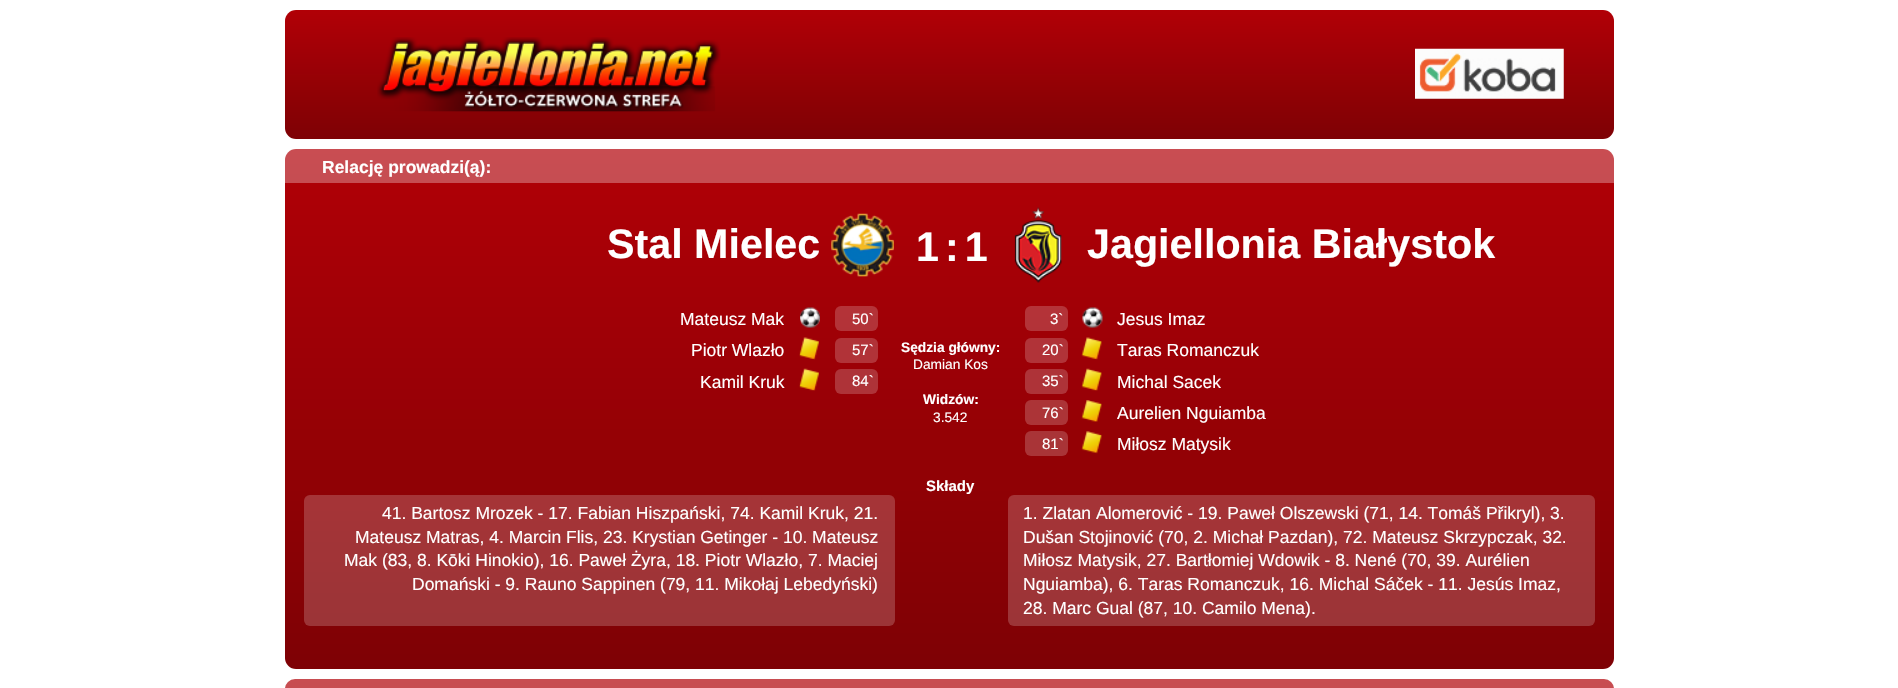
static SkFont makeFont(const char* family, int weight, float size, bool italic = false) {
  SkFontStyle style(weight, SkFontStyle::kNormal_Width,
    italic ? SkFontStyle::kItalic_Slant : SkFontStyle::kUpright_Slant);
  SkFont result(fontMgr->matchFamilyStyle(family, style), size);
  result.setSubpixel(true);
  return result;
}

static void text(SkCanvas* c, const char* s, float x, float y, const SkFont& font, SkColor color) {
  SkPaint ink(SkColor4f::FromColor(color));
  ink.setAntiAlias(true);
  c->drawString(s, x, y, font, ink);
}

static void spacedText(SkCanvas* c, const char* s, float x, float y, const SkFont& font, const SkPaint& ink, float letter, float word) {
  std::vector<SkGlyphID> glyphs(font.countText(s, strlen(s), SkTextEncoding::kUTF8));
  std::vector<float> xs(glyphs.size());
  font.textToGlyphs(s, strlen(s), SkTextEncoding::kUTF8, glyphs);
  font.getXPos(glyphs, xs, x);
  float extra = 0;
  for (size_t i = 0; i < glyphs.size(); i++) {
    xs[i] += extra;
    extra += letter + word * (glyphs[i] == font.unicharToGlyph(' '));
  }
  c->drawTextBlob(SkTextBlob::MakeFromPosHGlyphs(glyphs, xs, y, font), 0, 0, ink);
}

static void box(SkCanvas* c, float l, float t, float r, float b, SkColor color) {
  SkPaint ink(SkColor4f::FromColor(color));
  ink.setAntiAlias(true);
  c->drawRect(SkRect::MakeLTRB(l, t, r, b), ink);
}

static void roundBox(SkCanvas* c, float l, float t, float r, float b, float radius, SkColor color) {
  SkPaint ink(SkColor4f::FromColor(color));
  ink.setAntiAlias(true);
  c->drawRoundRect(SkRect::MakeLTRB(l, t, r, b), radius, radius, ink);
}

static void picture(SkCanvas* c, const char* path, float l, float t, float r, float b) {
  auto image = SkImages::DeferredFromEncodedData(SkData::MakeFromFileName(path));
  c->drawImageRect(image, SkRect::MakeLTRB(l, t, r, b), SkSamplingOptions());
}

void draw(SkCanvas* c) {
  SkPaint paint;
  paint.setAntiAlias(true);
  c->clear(0xffffffff);
  {
    const SkColor colors[] = {0xffb10006, 0xff7e0105};
    const float stops[] = {0, 1};
    const SkPoint ends[] = {{949, 10}, {949, 139}};
    paint.setShader(SkGradientShader::MakeLinear(ends, colors, stops, 2, SkTileMode::kClamp));
    paint.setAlpha(255);
  }
  c->drawRoundRect(SkRect::MakeLTRB(285, 10, 1614, 139), 11, 11, paint);
  picture(c, "img_01.png", 377, 37, 721, 112);
  picture(c, "img_02.png", 1415, 48, 1564, 99);
  {
    const SkColor colors[] = {0xffb10006, 0xff7e0105};
    const float stops[] = {0, 1};
    const SkPoint ends[] = {{949, 149}, {949, 669}};
    paint.setShader(SkGradientShader::MakeLinear(ends, colors, stops, 2, SkTileMode::kClamp));
    paint.setAlpha(255);
  }
  c->drawRoundRect(SkRect::MakeLTRB(285, 149, 1614, 669), 11, 11, paint);
  box(c, 285, 149, 1614, 183, 0x4dffffff);
  SkFont face1 = makeFont("Liberation Sans", 700, 17.5f);
  text(c, "Relację prowadzi(ą):", 322, 173, face1, 0xffffffff);
  SkFont face2 = makeFont("Liberation Sans", 700, 41.25f);
  text(c, "Stal Mielec", 607, 258, face2, 0xffffffff);
  picture(c, "img_03.png", 831, 213, 894, 277);
  paint.setShader(nullptr);
  paint.setColor(0xffffffff);
  spacedText(c, "1:1", 916, 261, face2, paint, 6, 0);
  picture(c, "img_04.png", 1014, 207, 1062, 283);
  text(c, "Jagiellonia Białystok", 1087, 258, face2, 0xffffffff);
  SkFont face3 = makeFont("Liberation Sans", 400, 17.5f);
  text(c, "Mateusz Mak", 680, 325, face3, 0xffffffff);
  picture(c, "img_05.png", 800, 307, 820, 328);
  roundBox(c, 835, 306, 878, 331, 6, 0x33ffffff);
  SkFont face4 = makeFont("Liberation Sans", 400, 15);
  text(c, "50`", 852, 324, face4, 0xffffffff);
  text(c, "Piotr Wlazło", 691, 356, face3, 0xffffffff);
  picture(c, "img_06.png", 799, 337, 819, 360);
  roundBox(c, 835, 338, 878, 363, 6, 0xffb13338);
  text(c, "57`", 852, 355, face4, 0xffffffff);
  text(c, "Kamil Kruk", 700, 388, face3, 0xffffffff);
  picture(c, "img_07.png", 799, 368, 819, 391);
  roundBox(c, 835, 369, 878, 394, 6, 0xffae3338);
  text(c, "84`", 852, 386, face4, 0xffffffff);
  SkFont face5 = makeFont("Liberation Sans", 700, 13.75f);
  text(c, "Sędzia główny:", 901, 352, face5, 0xffffffff);
  SkFont face6 = makeFont("Liberation Sans", 400, 13.75f);
  text(c, "Damian Kos", 913, 369, face6, 0xffffffff);
  text(c, "Widzów:", 923, 404, face5, 0xffffffff);
  text(c, "3.542", 933, 422, face6, 0xffffffff);
  roundBox(c, 1025, 306, 1068, 331, 6, 0x33ffffff);
  text(c, "3`", 1050, 324, face4, 0xffffffff);
  picture(c, "img_08.png", 1082, 307, 1103, 328);
  text(c, "Jesus Imaz", 1117, 325, face3, 0xffffffff);
  roundBox(c, 1025, 338, 1068, 363, 6, 0xffb13338);
  text(c, "20`", 1042, 355, face4, 0xffffffff);
  picture(c, "img_09.png", 1081, 337, 1102, 360);
  text(c, "Taras Romanczuk", 1117, 356, face3, 0xffffffff);
  roundBox(c, 1025, 369, 1068, 394, 6, 0xffae3338);
  text(c, "35`", 1042, 386, face4, 0xffffffff);
  picture(c, "img_10.png", 1081, 368, 1102, 391);
  text(c, "Michal Sacek", 1117, 388, face3, 0xffffffff);
  roundBox(c, 1025, 400, 1068, 425, 6, 0xffac3437);
  text(c, "76`", 1042, 418, face4, 0xffffffff);
  picture(c, "img_11.png", 1081, 400, 1102, 422);
  text(c, "Aurelien Nguiamba", 1117, 419, face3, 0xffffffff);
  roundBox(c, 1025, 431, 1068, 456, 6, 0xffa93437);
  text(c, "81`", 1042, 449, face4, 0xffffffff);
  picture(c, "img_12.png", 1081, 431, 1102, 454);
  text(c, "Miłosz Matysik", 1117, 450, face3, 0xffffffff);
  SkFont face7 = makeFont("Liberation Sans", 700, 15);
  text(c, "Składy", 926, 491, face7, 0xffffffff);
  roundBox(c, 304, 495, 895, 626, 6, 0x33ffffff);
  text(c, "41. Bartosz Mrozek - 17. Fabian Hiszpański, 74. Kamil Kruk, 21.", 382, 519, face3, 0xffffffff);
  text(c, "Mateusz Matras, 4. Marcin Flis, 23. Krystian Getinger - 10. Mateusz", 355, 543, face3, 0xffffffff);
  text(c, "Mak (83, 8. Kōki Hinokio), 16. Paweł Żyra, 18. Piotr Wlazło, 7. Maciej", 344, 566, face3, 0xffffffff);
  text(c, "Domański - 9. Rauno Sappinen (79, 11. Mikołaj Lebedyński)", 412, 590, face3, 0xffffffff);
  roundBox(c, 1008, 495, 1595, 626, 6, 0x33ffffff);
  text(c, "1. Zlatan Alomerović - 19. Paweł Olszewski (71, 14. Tomáš Přikryl), 3.", 1023, 519, face3, 0xffffffff);
  text(c, "Dušan Stojinović (70, 2. Michał Pazdan), 72. Mateusz Skrzypczak, 32.", 1023, 543, face3, 0xffffffff);
  text(c, "Miłosz Matysik, 27. Bartłomiej Wdowik - 8. Nené (70, 39. Aurélien", 1023, 566, face3, 0xffffffff);
  text(c, "Nguiamba), 6. Taras Romanczuk, 16. Michal Sáček - 11. Jesús Imaz,", 1023, 590, face3, 0xffffffff);
  text(c, "28. Marc Gual (87, 10. Camilo Mena).", 1023, 614, face3, 0xffffffff);
  {
    const SkColor colors[] = {0xffc84d51, 0xffa54d50};
    const float stops[] = {0, 1};
    const SkPoint ends[] = {{949, 679}, {949, 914}};
    paint.setShader(SkGradientShader::MakeLinear(ends, colors, stops, 2, SkTileMode::kClamp));
    paint.setAlpha(255);
  }
  c->drawRoundRect(SkRect::MakeLTRB(285, 679, 1614, 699), 11, 11, paint);
}
